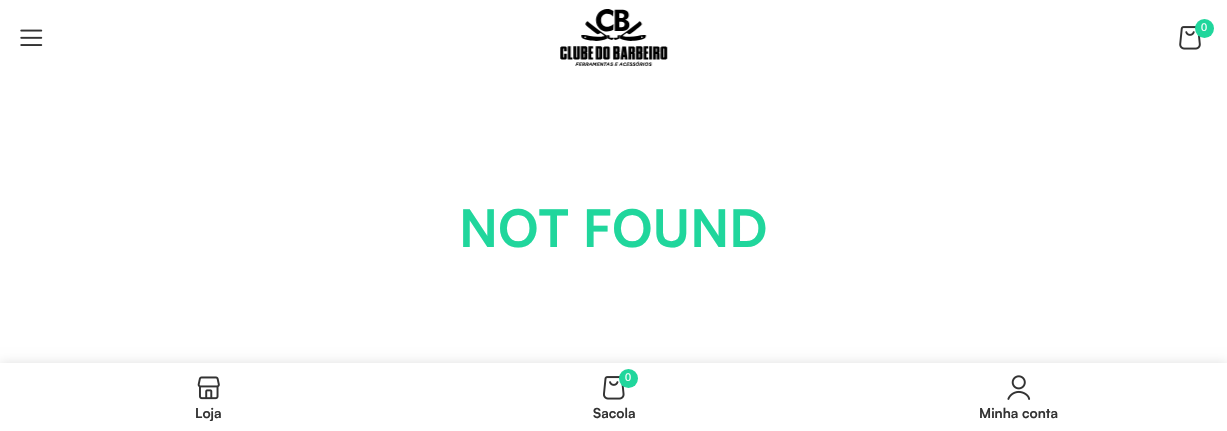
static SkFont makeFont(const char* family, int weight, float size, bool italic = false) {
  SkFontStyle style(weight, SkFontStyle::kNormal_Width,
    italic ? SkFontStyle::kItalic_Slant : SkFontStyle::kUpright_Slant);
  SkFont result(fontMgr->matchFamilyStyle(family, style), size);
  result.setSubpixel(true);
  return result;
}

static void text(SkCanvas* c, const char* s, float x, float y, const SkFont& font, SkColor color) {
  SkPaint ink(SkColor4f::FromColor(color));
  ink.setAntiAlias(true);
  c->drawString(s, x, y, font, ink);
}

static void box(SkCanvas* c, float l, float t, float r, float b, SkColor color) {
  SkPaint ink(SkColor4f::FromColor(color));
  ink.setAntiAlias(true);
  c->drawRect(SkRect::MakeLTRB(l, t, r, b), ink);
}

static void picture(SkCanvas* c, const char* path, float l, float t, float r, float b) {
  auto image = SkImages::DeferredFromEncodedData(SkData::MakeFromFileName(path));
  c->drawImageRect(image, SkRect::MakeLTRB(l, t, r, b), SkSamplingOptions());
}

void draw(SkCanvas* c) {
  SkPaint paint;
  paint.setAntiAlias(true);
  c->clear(0xffffffff);
  picture(c, "img_01.png", 560, 9, 668, 66);
  picture(c, "img_02.png", 1179, 26, 1201, 50);
  paint.setColor(0xff20d69c);
  c->drawCircle(1204.5f, 28.5f, 9.5f, paint);
  SkFont face1 = makeFont("Liberation Sans", 400, 11);
  text(c, "0", 1201, 31, face1, 0xffffffff);
  picture(c, "img_03.png", 20, 29, 43, 46);
  SkFont face2 = makeFont("Satoshi", 700, 51.5f);
  text(c, "NOT FOUND", 459, 247, face2, 0xff20d69c);
  paint.setColor(0x1f000000);
  paint.setMaskFilter(SkMaskFilter::MakeBlur(kNormal_SkBlurStyle, 5.5f));
  c->drawRect(SkRect::MakeLTRB(0, 363, 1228, 431), paint);
  paint.setMaskFilter(nullptr);
  box(c, 0, 363, 1227, 431, 0xffffffff);
  picture(c, "img_04.png", 197, 376, 220, 400);
  c->save();
  c->clipRect(SkRect::MakeLTRB(19, 405, 399, 421));
  SkFont face3 = makeFont("Satoshi", 700, 13.75f);
  text(c, "Loja", 195, 418, face3, 0xff333333);
  c->restore();
  picture(c, "img_05.png", 603, 376, 625, 400);
  paint.setColor(0xff20d69c);
  c->drawCircle(628.5f, 378.5f, 9.5f, paint);
  text(c, "0", 625, 381, face1, 0xffffffff);
  text(c, "Sacola", 593, 418, face3, 0xff333333);
  picture(c, "img_06.png", 1007, 375, 1031, 400);
  text(c, "Minha conta", 979, 418, face3, 0xff333333);
}
